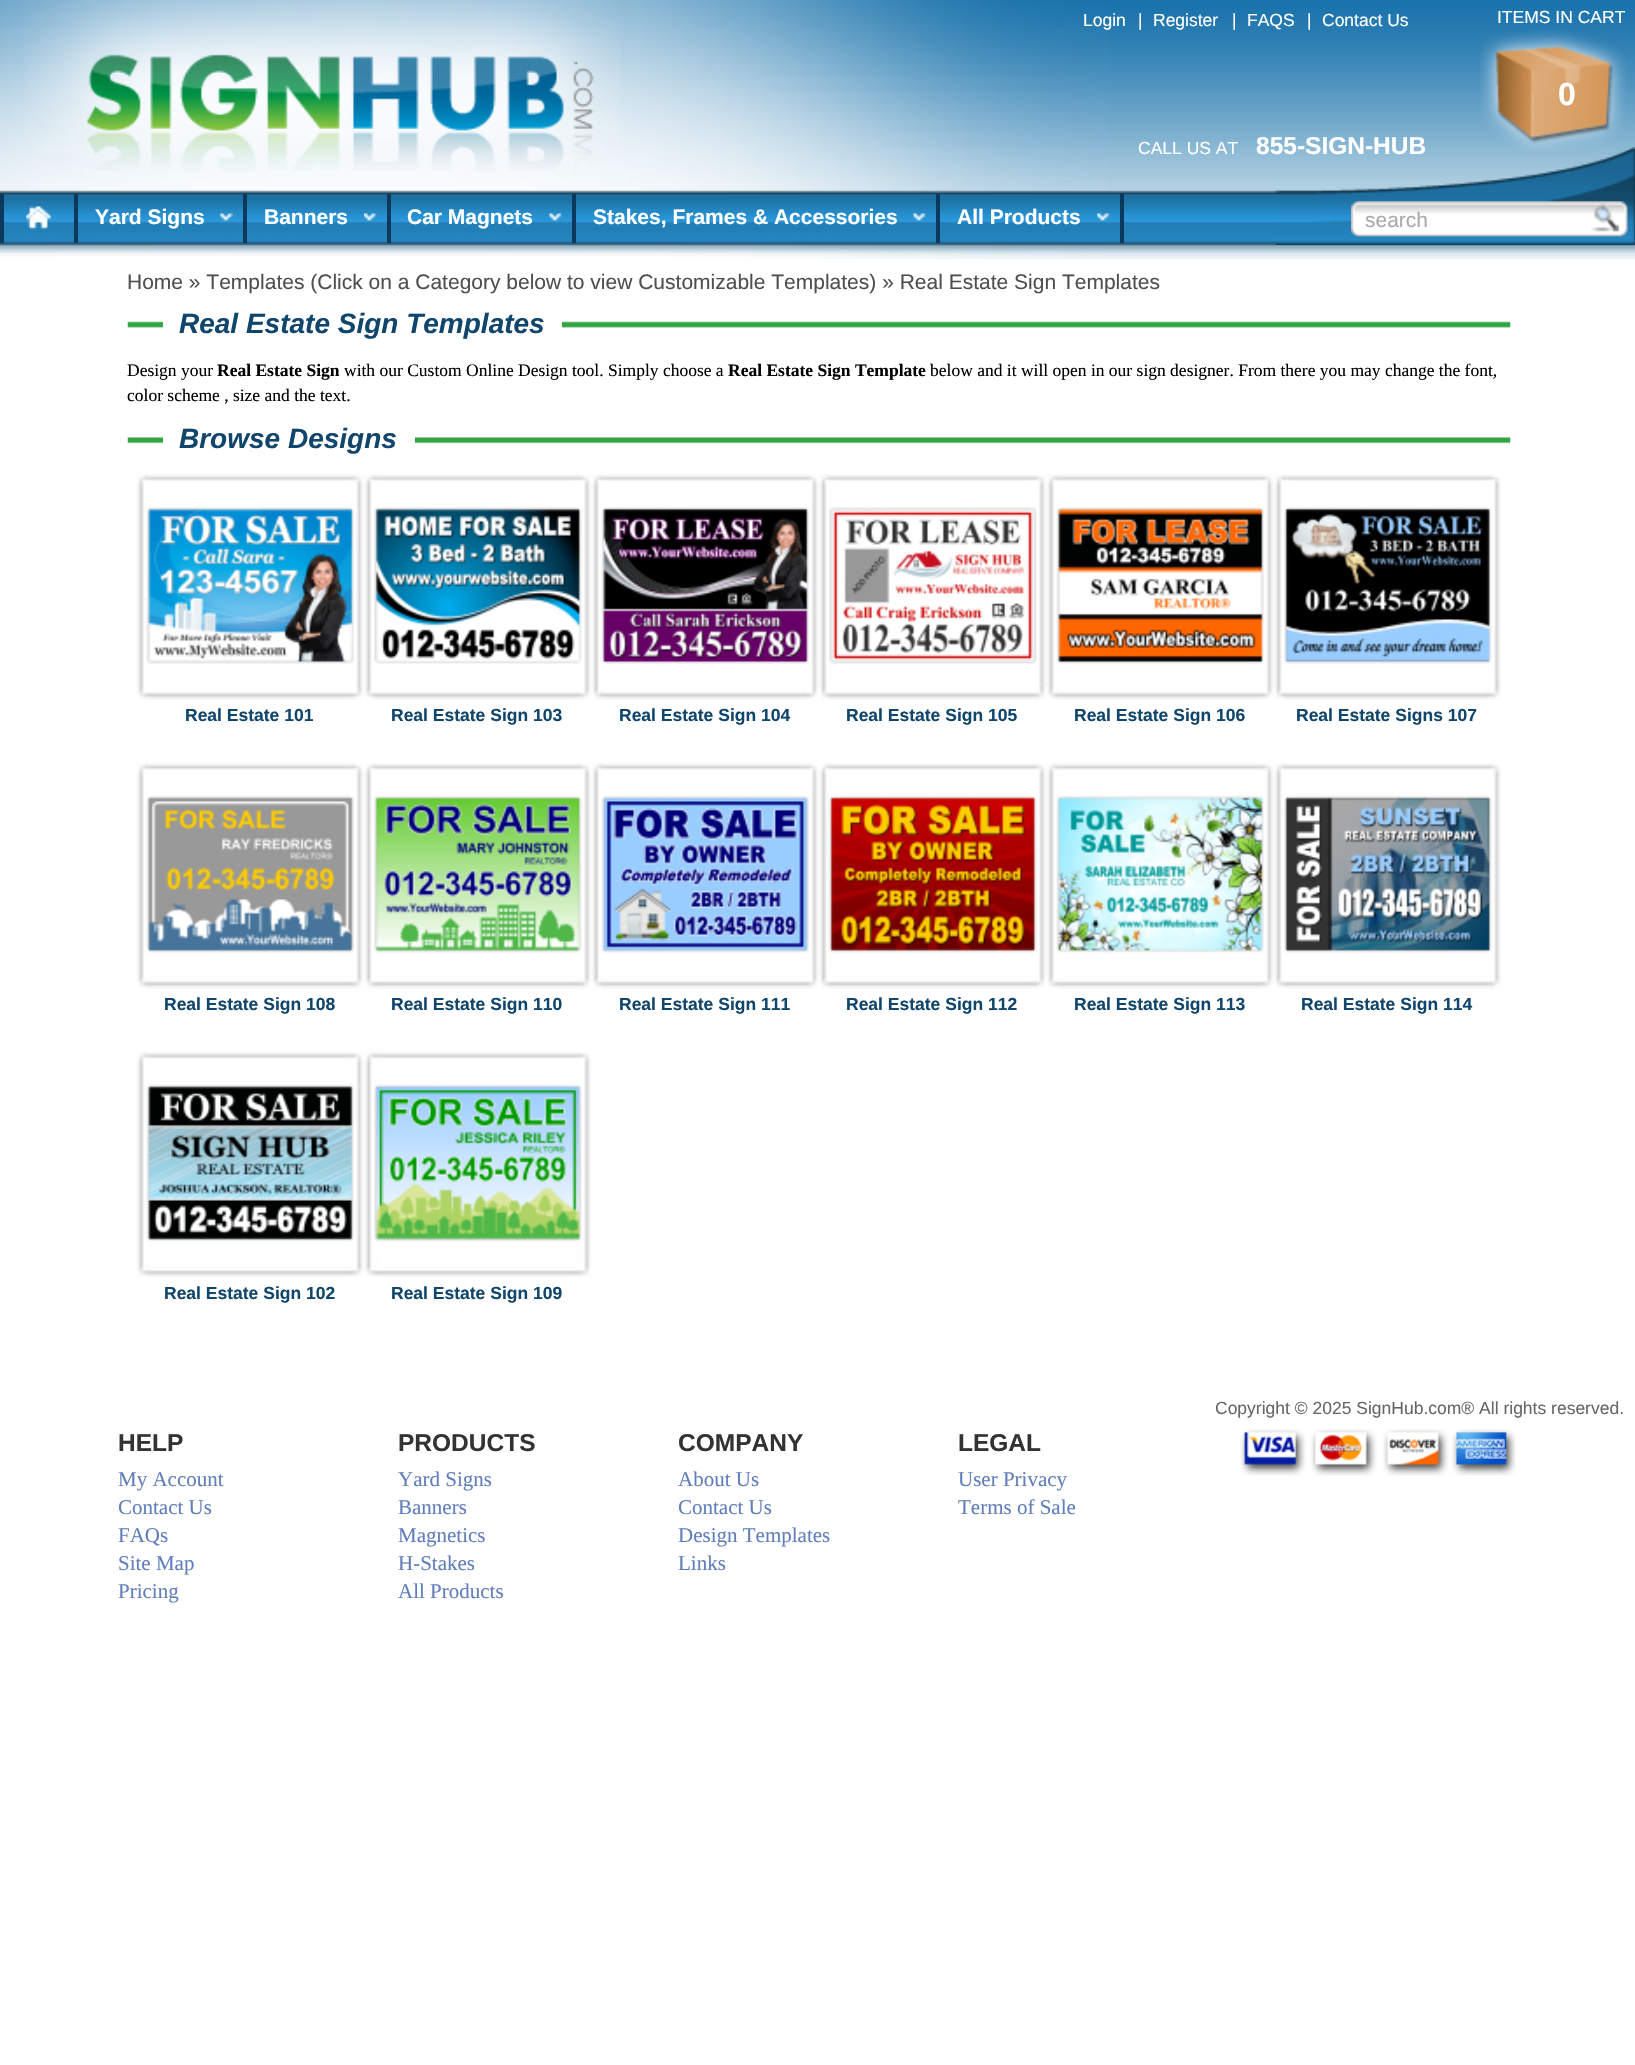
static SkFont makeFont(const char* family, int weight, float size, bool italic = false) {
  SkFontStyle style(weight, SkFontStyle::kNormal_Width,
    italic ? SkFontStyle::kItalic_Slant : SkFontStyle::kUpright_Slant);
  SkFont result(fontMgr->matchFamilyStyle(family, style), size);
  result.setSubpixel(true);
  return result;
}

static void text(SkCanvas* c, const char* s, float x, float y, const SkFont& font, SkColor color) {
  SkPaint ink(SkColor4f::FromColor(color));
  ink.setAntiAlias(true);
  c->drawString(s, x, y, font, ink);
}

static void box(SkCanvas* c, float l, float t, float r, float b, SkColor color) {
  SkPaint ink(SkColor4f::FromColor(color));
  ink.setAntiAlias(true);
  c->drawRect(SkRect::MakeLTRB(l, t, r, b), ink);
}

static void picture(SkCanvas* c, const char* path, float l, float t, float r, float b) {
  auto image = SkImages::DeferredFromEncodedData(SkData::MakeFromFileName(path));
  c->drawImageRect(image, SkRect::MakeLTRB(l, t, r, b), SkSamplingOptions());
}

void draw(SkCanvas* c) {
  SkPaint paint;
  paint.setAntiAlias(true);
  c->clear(0xffffffff);
  picture(c, "img_01.png", 1108, 0, 1635, 259);
  picture(c, "img_02.png", 0, 0, 1108, 259);
  picture(c, "img_03.png", 25, 0, 621, 171);
  SkFont face1 = makeFont("Liberation Sans", 400, 17.5f);
  text(c, "Login", 1083, 26, face1, 0xffffffff);
  text(c, "|", 1138, 26, face1, 0xffffffff);
  text(c, "Register", 1153, 26, face1, 0xffffffff);
  text(c, "|", 1232, 26, face1, 0xffffffff);
  text(c, "FAQS", 1247, 26, face1, 0xffffffff);
  text(c, "|", 1307, 26, face1, 0xffffffff);
  text(c, "Contact Us", 1322, 26, face1, 0xffffffff);
  text(c, "ITEMS IN CART", 1497, 23, face1, 0xffffffff);
  picture(c, "img_04.png", 1480, 30, 1626, 152);
  SkFont face2 = makeFont("Liberation Sans", 700, 32);
  text(c, "0", 1558, 105, face2, 0xffffffff);
  text(c, "CALL US AT", 1138, 154, face1, 0xffffffff);
  SkFont face3 = makeFont("Liberation Sans", 700, 24.5f);
  text(c, "855-SIGN-HUB", 1256, 154, face3, 0xffffffff);
  picture(c, "img_05.png", 0, 190, 1635, 256);
  box(c, 74, 194, 78, 243, 0xff0d3a5c);
  box(c, 0, 194, 4, 243, 0xff0d3a5c);
  picture(c, "img_06.png", 26, 206, 51, 230);
  box(c, 243, 194, 247, 243, 0xff0d3a5c);
  picture(c, "img_07.png", 220, 213, 233, 221);
  SkFont face4 = makeFont("Liberation Sans", 700, 21);
  text(c, "Yard Signs", 95, 224, face4, 0xffffffff);
  box(c, 387, 194, 391, 243, 0xff0d3a5c);
  picture(c, "img_08.png", 364, 213, 377, 221);
  text(c, "Banners", 264, 224, face4, 0xffffffff);
  box(c, 572, 194, 576, 243, 0xff0d3a5c);
  picture(c, "img_09.png", 549, 213, 562, 221);
  text(c, "Car Magnets", 407, 224, face4, 0xffffffff);
  box(c, 936, 194, 940, 243, 0xff0d3a5c);
  picture(c, "img_10.png", 913, 213, 926, 221);
  text(c, "Stakes, Frames & Accessories", 593, 224, face4, 0xffffffff);
  box(c, 1120, 194, 1124, 243, 0xff0d3a5c);
  picture(c, "img_11.png", 1097, 213, 1110, 221);
  text(c, "All Products", 957, 224, face4, 0xffffffff);
  picture(c, "img_12.png", 1275, 147, 1635, 245);
  picture(c, "img_13.png", 1351, 201, 1628, 237);
  SkFont face5 = makeFont("Liberation Sans", 400, 21);
  text(c, "search", 1365, 227, face5, 0xffaaaaaa);
  picture(c, "img_14.png", 1591, 203, 1620, 232);
  text(c, "Home » Templates (Click on a Category below to view Customizable Templates) » Real Estate Sign Templates", 127, 289, face5, 0xff4f4f4f);
  picture(c, "img_15.png", 127, 321, 1511, 328);
  box(c, 163, 321, 562, 328, 0xffffffff);
  SkFont face6 = makeFont("Liberation Sans", 700, 28, true);
  text(c, "Real Estate Sign Templates", 179, 333, face6, 0xff11466c);
  SkFont face7 = makeFont("Liberation Serif", 400, 17.5f);
  text(c, "Design your", 127, 376, face7, 0xff000000);
  SkFont face8 = makeFont("Liberation Serif", 700, 17.5f);
  text(c, "Real Estate Sign", 217, 376, face8, 0xff000000);
  text(c, "with our Custom Online Design tool. Simply choose a", 344, 376, face7, 0xff000000);
  text(c, "Real Estate Sign Template", 728, 376, face8, 0xff000000);
  text(c, "below and it will open in our sign designer. From there you may change the font,", 930, 376, face7, 0xff000000);
  text(c, "color scheme , size and the text.", 127, 401, face7, 0xff000000);
  picture(c, "img_16.png", 127, 437, 1511, 444);
  box(c, 163, 437, 415, 444, 0xffffffff);
  text(c, "Browse Designs", 179, 448, face6, 0xff11466c);
  picture(c, "img_17.png", 136, 473, 364, 700);
  picture(c, "img_18.png", 146, 481, 354, 689);
  SkFont face9 = makeFont("Liberation Sans", 700, 17.5f);
  text(c, "Real Estate 101", 185, 721, face9, 0xff11466c);
  picture(c, "img_19.png", 364, 474, 591, 700);
  picture(c, "img_20.png", 373, 481, 582, 689);
  text(c, "Real Estate Sign 103", 391, 721, face9, 0xff11466c);
  picture(c, "img_17.png", 591, 473, 819, 700);
  picture(c, "img_21.png", 601, 481, 809, 689);
  text(c, "Real Estate Sign 104", 619, 721, face9, 0xff11466c);
  picture(c, "img_19.png", 819, 474, 1046, 700);
  picture(c, "img_22.png", 828, 481, 1037, 689);
  text(c, "Real Estate Sign 105", 846, 721, face9, 0xff11466c);
  picture(c, "img_23.png", 1046, 473, 1274, 700);
  picture(c, "img_24.png", 1056, 481, 1264, 689);
  text(c, "Real Estate Sign 106", 1074, 721, face9, 0xff11466c);
  picture(c, "img_25.png", 1274, 474, 1501, 700);
  picture(c, "img_26.png", 1283, 481, 1492, 689);
  text(c, "Real Estate Signs 107", 1296, 721, face9, 0xff11466c);
  picture(c, "img_27.png", 136, 762, 364, 989);
  picture(c, "img_28.png", 146, 770, 354, 978);
  text(c, "Real Estate Sign 108", 164, 1010, face9, 0xff11466c);
  picture(c, "img_29.png", 364, 763, 591, 989);
  picture(c, "img_30.png", 373, 770, 582, 978);
  text(c, "Real Estate Sign 110", 391, 1010, face9, 0xff11466c);
  picture(c, "img_27.png", 591, 762, 819, 989);
  picture(c, "img_31.png", 601, 770, 809, 978);
  text(c, "Real Estate Sign 111", 619, 1010, face9, 0xff11466c);
  picture(c, "img_29.png", 819, 763, 1046, 989);
  picture(c, "img_32.png", 828, 770, 1037, 978);
  text(c, "Real Estate Sign 112", 846, 1010, face9, 0xff11466c);
  picture(c, "img_33.png", 1046, 762, 1274, 989);
  picture(c, "img_34.png", 1056, 770, 1264, 978);
  text(c, "Real Estate Sign 113", 1074, 1010, face9, 0xff11466c);
  picture(c, "img_35.png", 1274, 763, 1501, 989);
  picture(c, "img_36.png", 1283, 770, 1492, 978);
  text(c, "Real Estate Sign 114", 1301, 1010, face9, 0xff11466c);
  picture(c, "img_37.png", 136, 1051, 364, 1277);
  picture(c, "img_38.png", 146, 1059, 354, 1263);
  text(c, "Real Estate Sign 102", 164, 1299, face9, 0xff11466c);
  picture(c, "img_39.png", 364, 1051, 591, 1277);
  picture(c, "img_40.png", 374, 1059, 582, 1242);
  text(c, "Real Estate Sign 109", 391, 1299, face9, 0xff11466c);
  text(c, "Copyright © 2025 SignHub.com® All rights reserved.", 1215, 1414, face1, 0xff666666);
  text(c, "HELP", 118, 1451, face3, 0xff333333);
  SkFont face10 = makeFont("Liberation Serif", 400, 21);
  text(c, "My Account", 118, 1486, face10, 0xff617ebc);
  text(c, "Contact Us", 118, 1514, face10, 0xff617ebc);
  text(c, "FAQs", 118, 1542, face10, 0xff617ebc);
  text(c, "Site Map", 118, 1570, face10, 0xff617ebc);
  text(c, "Pricing", 118, 1598, face10, 0xff617ebc);
  text(c, "PRODUCTS", 398, 1451, face3, 0xff333333);
  text(c, "Yard Signs", 398, 1486, face10, 0xff617ebc);
  text(c, "Banners", 398, 1514, face10, 0xff617ebc);
  text(c, "Magnetics", 398, 1542, face10, 0xff617ebc);
  text(c, "H-Stakes", 398, 1570, face10, 0xff617ebc);
  text(c, "All Products", 398, 1598, face10, 0xff617ebc);
  text(c, "COMPANY", 678, 1451, face3, 0xff333333);
  text(c, "About Us", 678, 1486, face10, 0xff617ebc);
  text(c, "Contact Us", 678, 1514, face10, 0xff617ebc);
  text(c, "Design Templates", 678, 1542, face10, 0xff617ebc);
  text(c, "Links", 678, 1570, face10, 0xff617ebc);
  text(c, "LEGAL", 958, 1451, face3, 0xff333333);
  text(c, "User Privacy", 958, 1486, face10, 0xff617ebc);
  text(c, "Terms of Sale", 958, 1514, face10, 0xff617ebc);
  picture(c, "img_41.png", 1240, 1429, 1516, 1476);
}
